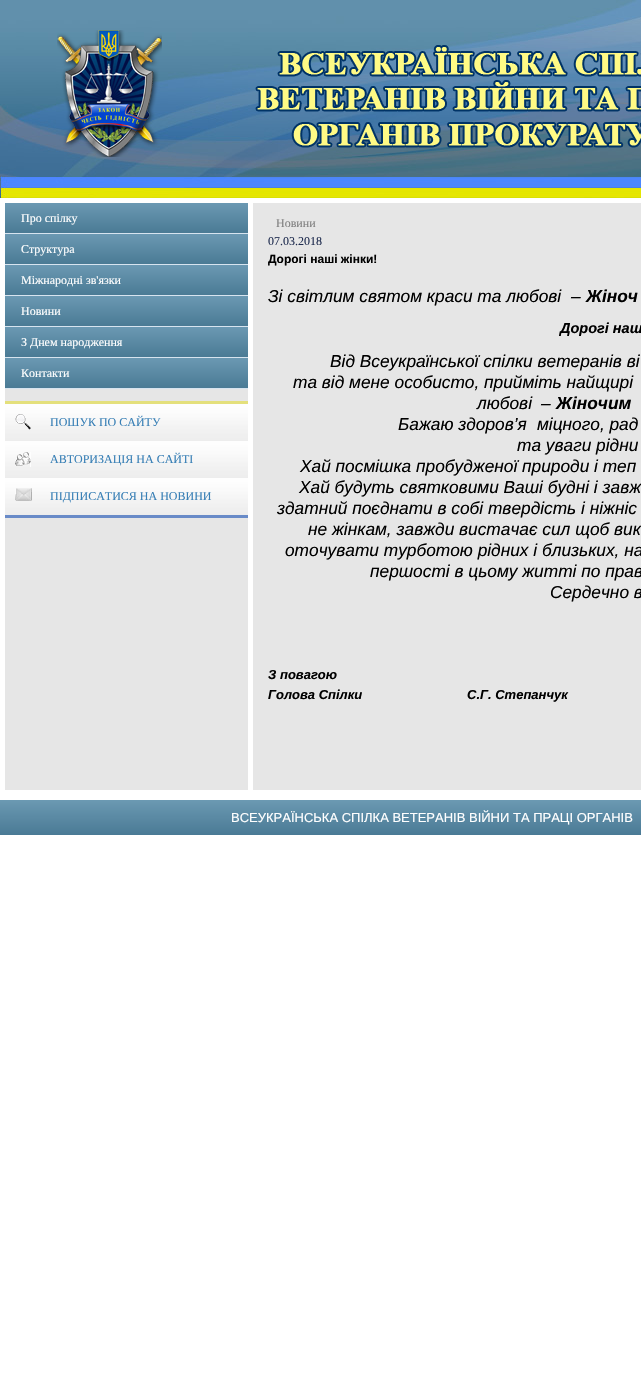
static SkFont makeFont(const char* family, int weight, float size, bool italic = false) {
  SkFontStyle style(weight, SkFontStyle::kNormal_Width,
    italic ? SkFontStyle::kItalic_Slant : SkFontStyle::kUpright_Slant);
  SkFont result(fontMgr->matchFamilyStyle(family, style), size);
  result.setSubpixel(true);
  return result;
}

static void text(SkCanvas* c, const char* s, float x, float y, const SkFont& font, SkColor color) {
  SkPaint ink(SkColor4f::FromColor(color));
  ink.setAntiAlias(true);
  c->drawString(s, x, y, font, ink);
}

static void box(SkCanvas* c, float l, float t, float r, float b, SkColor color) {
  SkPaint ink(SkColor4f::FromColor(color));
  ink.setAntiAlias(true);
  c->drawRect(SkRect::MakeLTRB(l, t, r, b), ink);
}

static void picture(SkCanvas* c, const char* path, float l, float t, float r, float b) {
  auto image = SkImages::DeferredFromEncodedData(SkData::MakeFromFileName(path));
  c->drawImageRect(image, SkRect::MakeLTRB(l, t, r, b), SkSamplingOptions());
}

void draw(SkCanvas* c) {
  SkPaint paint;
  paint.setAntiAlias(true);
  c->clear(0xffffffff);
  picture(c, "img_01.png", 0, 0, 641, 198);
  picture(c, "img_02.png", 57, 30, 162, 157);
  picture(c, "img_03.png", 255, 45, 641, 148);
  box(c, 5, 389, 248, 790, 0xffe6e6e6);
  box(c, 5, 233, 248, 234, 0xffd7e4ef);
  {
    const SkColor colors[] = {0xff6b99b2, 0xff4a7a95};
    const float stops[] = {0, 1};
    const SkPoint ends[] = {{127, 203}, {127, 233}};
    paint.setShader(SkGradientShader::MakeLinear(ends, colors, stops, 2, SkTileMode::kClamp));
    paint.setAlpha(255);
  }
  c->drawRect(SkRect::MakeLTRB(5, 203, 248, 233), paint);
  SkFont face1 = makeFont("Liberation Serif", 400, 12);
  text(c, "Про спілку", 21, 222, face1, 0xffffffff);
  box(c, 5, 264, 248, 265, 0xffd7e4ef);
  {
    const SkColor colors[] = {0xff6b99b2, 0xff4a7a95};
    const float stops[] = {0, 1};
    const SkPoint ends[] = {{127, 234}, {127, 264}};
    paint.setShader(SkGradientShader::MakeLinear(ends, colors, stops, 2, SkTileMode::kClamp));
    paint.setAlpha(255);
  }
  c->drawRect(SkRect::MakeLTRB(5, 234, 248, 264), paint);
  text(c, "Структура", 21, 253, face1, 0xffffffff);
  box(c, 5, 295, 248, 296, 0xffd7e4ef);
  {
    const SkColor colors[] = {0xff6b99b2, 0xff4a7a95};
    const float stops[] = {0, 1};
    const SkPoint ends[] = {{127, 265}, {127, 295}};
    paint.setShader(SkGradientShader::MakeLinear(ends, colors, stops, 2, SkTileMode::kClamp));
    paint.setAlpha(255);
  }
  c->drawRect(SkRect::MakeLTRB(5, 265, 248, 295), paint);
  text(c, "Міжнародні зв'язки", 21, 284, face1, 0xffffffff);
  box(c, 5, 326, 248, 327, 0xffd7e4ef);
  {
    const SkColor colors[] = {0xff6b99b2, 0xff4a7a95};
    const float stops[] = {0, 1};
    const SkPoint ends[] = {{127, 296}, {127, 326}};
    paint.setShader(SkGradientShader::MakeLinear(ends, colors, stops, 2, SkTileMode::kClamp));
    paint.setAlpha(255);
  }
  c->drawRect(SkRect::MakeLTRB(5, 296, 248, 326), paint);
  text(c, "Новини", 21, 315, face1, 0xffffffff);
  box(c, 5, 357, 248, 358, 0xffd7e4ef);
  {
    const SkColor colors[] = {0xff6b99b2, 0xff4a7a95};
    const float stops[] = {0, 1};
    const SkPoint ends[] = {{127, 327}, {127, 357}};
    paint.setShader(SkGradientShader::MakeLinear(ends, colors, stops, 2, SkTileMode::kClamp));
    paint.setAlpha(255);
  }
  c->drawRect(SkRect::MakeLTRB(5, 327, 248, 357), paint);
  text(c, "З Днем народження", 21, 346, face1, 0xffffffff);
  box(c, 5, 388, 248, 389, 0xffd7e4ef);
  {
    const SkColor colors[] = {0xff6b99b2, 0xff4a7a95};
    const float stops[] = {0, 1};
    const SkPoint ends[] = {{127, 358}, {127, 388}};
    paint.setShader(SkGradientShader::MakeLinear(ends, colors, stops, 2, SkTileMode::kClamp));
    paint.setAlpha(255);
  }
  c->drawRect(SkRect::MakeLTRB(5, 358, 248, 388), paint);
  text(c, "Контакти", 21, 377, face1, 0xffffffff);
  box(c, 5, 401, 248, 404, 0xffe4e07c);
  box(c, 5, 515, 248, 518, 0xff698bc8);
  picture(c, "img_04.png", 5, 404, 248, 441);
  picture(c, "img_05.png", 15, 414, 31, 430);
  text(c, "ПОШУК ПО САЙТУ", 50, 426, face1, 0xff3980b6);
  picture(c, "img_04.png", 5, 441, 248, 478);
  picture(c, "img_06.png", 15, 452, 31, 467);
  text(c, "АВТОРИЗАЦІЯ НА САЙТІ", 50, 463, face1, 0xff3980b6);
  picture(c, "img_04.png", 5, 478, 248, 515);
  picture(c, "img_07.png", 15, 488, 32, 501);
  text(c, "ПІДПИСАТИСЯ НА НОВИНИ", 50, 500, face1, 0xff3980b6);
  box(c, 253, 203, 641, 790, 0xffe6e6e6);
  text(c, "Новини", 276, 227, face1, 0xff808080);
  text(c, "07.03.2018", 268, 245, face1, 0xff1f2c4f);
  SkFont face2 = makeFont("Liberation Sans", 700, 12);
  text(c, "Дорогі наші жінки!", 268, 263, face2, 0xff000000);
  SkFont face3 = makeFont("Liberation Sans", 400, 17.3f, true);
  text(c, "Зі світлим святом краси та любові", 268, 302, face3, 0xff000000);
  text(c, "–", 571, 302, face3, 0xff000000);
  SkFont face4 = makeFont("Liberation Sans", 700, 17.3f, true);
  text(c, "Жіноч", 586, 302, face4, 0xff000000);
  SkFont face5 = makeFont("Liberation Sans", 700, 14.5f, true);
  text(c, "Дорогі наш", 560, 333, face5, 0xff000000);
  text(c, "Від Всеукраїнської спілки ветеранів ві", 330, 367, face3, 0xff000000);
  text(c, "та від мене особисто, прийміть найщирі", 293, 388, face3, 0xff000000);
  text(c, "любові", 477, 409, face3, 0xff000000);
  text(c, "–", 541, 409, face3, 0xff000000);
  text(c, "Жіночим", 556, 409, face4, 0xff000000);
  text(c, "Бажаю здоров’я", 398, 430, face3, 0xff000000);
  text(c, "міцного, рад", 537, 430, face3, 0xff000000);
  text(c, "та уваги рідни", 517, 451, face3, 0xff000000);
  text(c, "Хай посмішка пробудженої природи і теп", 300, 472, face3, 0xff000000);
  text(c, "Хай будуть святковими Ваші будні і завж", 299, 493, face3, 0xff000000);
  text(c, "здатний поєднати в собі твердість і ніжніс", 277, 514, face3, 0xff000000);
  text(c, "не жінкам, завжди вистачає сил щоб вик", 308, 535, face3, 0xff000000);
  text(c, "оточувати турботою рідних і близьких, на", 285, 556, face3, 0xff000000);
  text(c, "першості в цьому житті по прав", 370, 577, face3, 0xff000000);
  text(c, "Сердечно в", 550, 598, face3, 0xff000000);
  SkFont face6 = makeFont("Liberation Sans", 700, 13, true);
  text(c, "З повагою", 268, 679, face6, 0xff000000);
  text(c, "Голова Спілки", 268, 699, face6, 0xff000000);
  text(c, "С.Г. Степанчук", 467, 699, face6, 0xff000000);
  {
    const SkColor colors[] = {0xff6b99b2, 0xff4a7a95};
    const float stops[] = {0, 1};
    const SkPoint ends[] = {{500, 800}, {500, 835}};
    paint.setShader(SkGradientShader::MakeLinear(ends, colors, stops, 2, SkTileMode::kClamp));
    paint.setAlpha(255);
  }
  c->drawRect(SkRect::MakeLTRB(0, 800, 641, 835), paint);
  SkFont face7 = makeFont("Liberation Sans", 400, 13);
  text(c, "ВСЕУКРАЇНСЬКА СПІЛКА ВЕТЕРАНІВ ВІЙНИ ТА ПРАЦІ ОРГАНІВ", 231, 822, face7, 0xffffffff);
}
